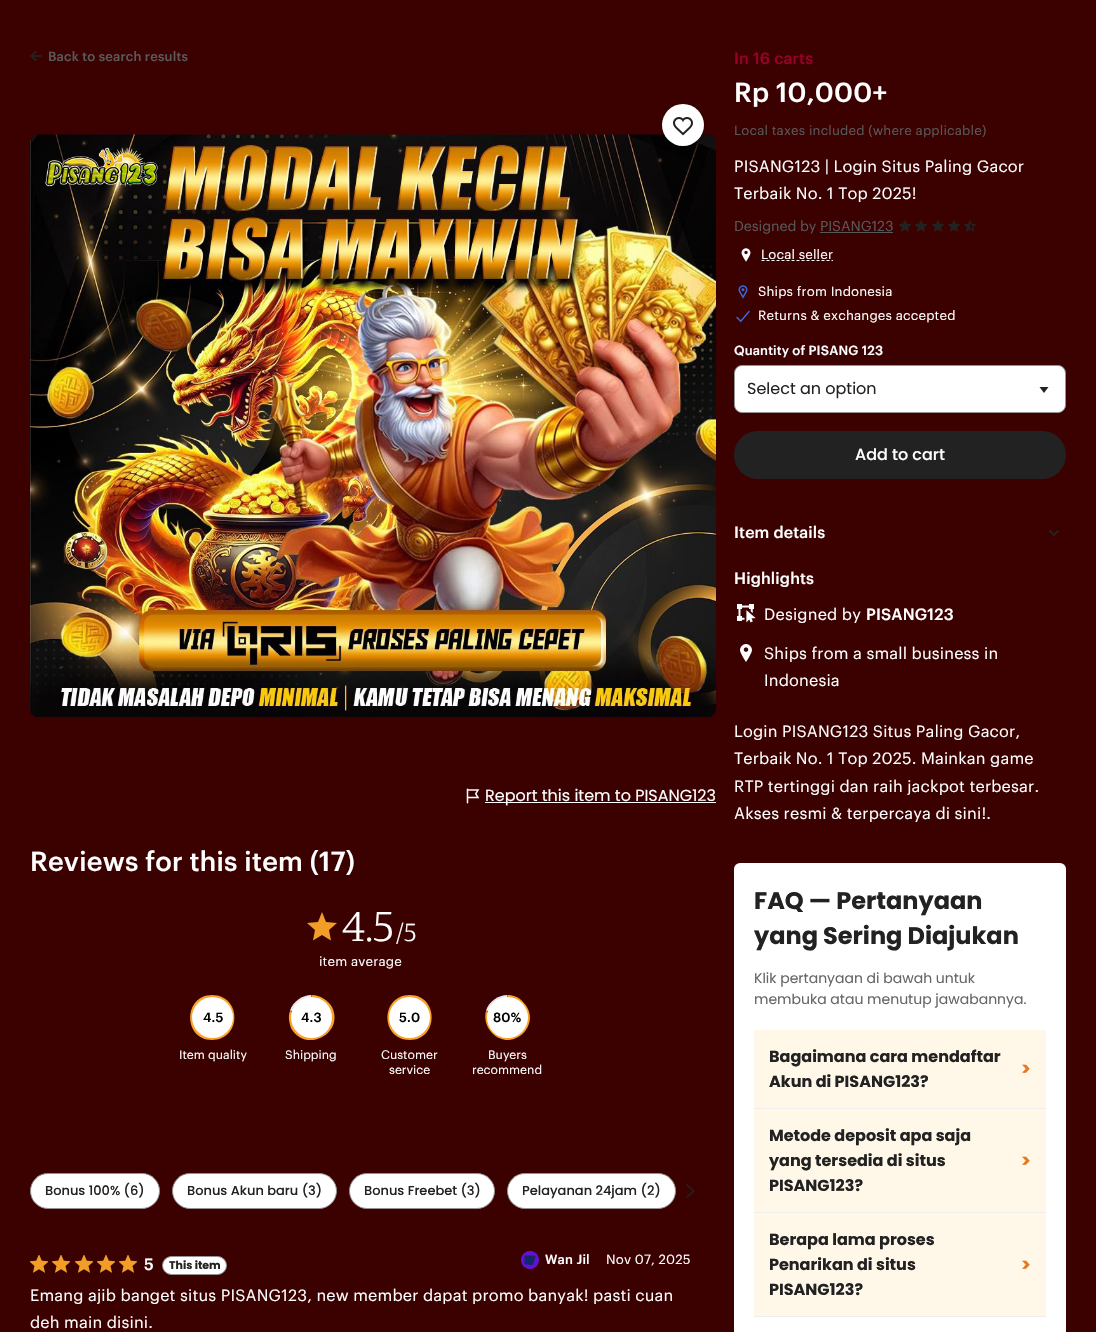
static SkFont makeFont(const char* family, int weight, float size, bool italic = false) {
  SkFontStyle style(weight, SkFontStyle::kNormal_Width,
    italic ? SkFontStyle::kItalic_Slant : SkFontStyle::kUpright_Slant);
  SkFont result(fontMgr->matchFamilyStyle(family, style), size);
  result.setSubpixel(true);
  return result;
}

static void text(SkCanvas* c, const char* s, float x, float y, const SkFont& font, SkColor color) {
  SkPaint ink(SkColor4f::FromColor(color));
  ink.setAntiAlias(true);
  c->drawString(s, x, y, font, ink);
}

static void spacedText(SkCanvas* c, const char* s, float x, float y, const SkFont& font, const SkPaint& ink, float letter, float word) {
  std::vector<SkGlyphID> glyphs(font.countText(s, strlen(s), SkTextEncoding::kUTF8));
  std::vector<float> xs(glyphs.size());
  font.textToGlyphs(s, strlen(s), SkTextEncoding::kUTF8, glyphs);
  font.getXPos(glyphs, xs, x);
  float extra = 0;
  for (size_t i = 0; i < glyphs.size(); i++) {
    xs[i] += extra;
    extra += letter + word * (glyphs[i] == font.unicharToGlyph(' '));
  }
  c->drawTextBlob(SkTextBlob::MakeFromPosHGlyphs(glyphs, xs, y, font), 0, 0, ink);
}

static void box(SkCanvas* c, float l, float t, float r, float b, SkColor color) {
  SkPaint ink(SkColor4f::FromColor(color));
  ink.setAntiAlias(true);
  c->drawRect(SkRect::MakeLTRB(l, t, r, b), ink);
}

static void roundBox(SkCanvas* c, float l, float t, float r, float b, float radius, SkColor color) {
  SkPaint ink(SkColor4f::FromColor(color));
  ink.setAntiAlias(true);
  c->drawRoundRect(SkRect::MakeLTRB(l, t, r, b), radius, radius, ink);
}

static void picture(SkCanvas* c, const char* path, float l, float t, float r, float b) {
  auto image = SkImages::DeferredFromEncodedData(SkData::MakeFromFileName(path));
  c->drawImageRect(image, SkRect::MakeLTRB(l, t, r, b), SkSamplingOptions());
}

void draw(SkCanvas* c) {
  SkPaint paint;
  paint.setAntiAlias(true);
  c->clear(0xff3a0100);
  picture(c, "img_01.png", 30, 51, 42, 61);
  SkFont face1 = makeFont("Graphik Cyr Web", 500, 13);
  paint.setColor(0xff595959);
  spacedText(c, "Back to search results", 48, 61, face1, paint, 0.15f, 0);
  picture(c, "img_03.png", 30, 134, 716, 718);
  paint.setColor(0x4d000000);
  paint.setMaskFilter(SkMaskFilter::MakeBlur(kNormal_SkBlurStyle, 1.5f));
  c->drawRoundRect(SkRect::MakeLTRB(662, 105, 704, 147), 21, 21, paint);
  paint.setMaskFilter(nullptr);
  paint.setColor(0xffffffff);
  c->drawCircle(683, 125, 21, paint);
  picture(c, "img_02.png", 673, 117, 693, 136);
  picture(c, "img_04.png", 466, 788, 480, 804);
  box(c, 485, 802, 716, 803, 0xffffffff);
  SkFont face2 = makeFont("Poppins", 400, 16);
  text(c, "Report this item to PISANG123", 485, 801, face2, 0xffffffff);
  SkFont face3 = makeFont("Graphik Cyr Web", 500, 16);
  paint.setColor(0xff9a0027);
  spacedText(c, "In 16 carts", 734, 64, face3, paint, 0.1f, 0);
  SkFont face4 = makeFont("Graphik Cyr Web", 500, 27);
  paint.setColor(0xffffffff);
  spacedText(c, "Rp 10,000+", 734, 102, face4, paint, 0.15f, 0);
  SkFont face5 = makeFont("Graphik Cyr Web", 400, 13);
  paint.setColor(0xff595959);
  spacedText(c, "Local taxes included (where applicable)", 734, 135, face5, paint, 0.15f, 0);
  SkFont face6 = makeFont("Graphik Cyr Web", 400, 16);
  paint.setColor(0xffffffff);
  spacedText(c, "PISANG123 | Login Situs Paling Gacor", 734, 172, face6, paint, 0.15f, 0);
  spacedText(c, "Terbaik No. 1 Top 2025!", 734, 199, face6, paint, 0.15f, 0);
  SkFont face7 = makeFont("Graphik Cyr Web", 400, 14);
  paint.setColor(0xff595959);
  spacedText(c, "Designed by PISANG123", 734, 231, face7, paint, -0.1f, 0);
  box(c, 820, 232, 893, 233, 0xff595959);
  picture(c, "img_05.png", 899, 220, 911, 232);
  picture(c, "img_05.png", 915, 220, 927, 232);
  picture(c, "img_05.png", 932, 220, 944, 232);
  picture(c, "img_05.png", 948, 220, 960, 232);
  picture(c, "img_06.png", 964, 220, 976, 232);
  picture(c, "img_07.png", 741, 248, 751, 262);
  paint.setColor(0xffffffff);
  spacedText(c, "Local seller", 761, 259, face5, paint, 0.15f, 0);
  paint.setStyle(SkPaint::kStroke_Style);
  paint.setStrokeWidth(1);
  paint.setPathEffect(SkDashPathEffect::Make({{3, 2}}, 0));
  c->drawPath(SkPathBuilder().moveTo(761.5f, 260.5f).lineTo(833, 260.5f).detach(), paint);
  paint.setPathEffect(nullptr);
  picture(c, "img_08.png", 738, 285, 748, 299);
  paint.setStyle(SkPaint::kFill_Style);
  spacedText(c, "Ships from Indonesia", 758, 296, face5, paint, 0.15f, 0);
  picture(c, "img_09.png", 736, 310, 750, 323);
  spacedText(c, "Returns & exchanges accepted", 758, 320, face5, paint, 0.15f, 0);
  spacedText(c, "Quantity of PISANG 123", 734, 355, face1, paint, 0.1f, 0);
  c->drawRoundRect(SkRect::MakeLTRB(734.5f, 365.5f, 1065.5f, 412.5f), 7.5f, 7.5f, paint);
  paint.setStyle(SkPaint::kStroke_Style);
  paint.setColor(0xff949494);
  c->drawRoundRect(SkRect::MakeLTRB(734.5f, 365.5f, 1065.5f, 412.5f), 7.5f, 7.5f, paint);
  text(c, "Select an option", 747, 394, face2, 0xff222222);
  paint.setStyle(SkPaint::kFill_Style);
  paint.setColor(0xff222222);
  c->drawPath(SkPathBuilder().moveTo(1048.5f, 387).lineTo(1044, 393).lineTo(1039.5f, 387).close().detach(), paint);
  roundBox(c, 734, 431, 1066, 479, 24, 0xff222222);
  SkFont face8 = makeFont("Poppins", 500, 16);
  text(c, "Add to cart", 855, 460, face8, 0xffffffff);
  paint.setColor(0xffffffff);
  spacedText(c, "Item details", 734, 538, face3, paint, 0.1f, 0);
  picture(c, "img_10.png", 1049, 530, 1059, 536);
  spacedText(c, "Highlights", 734, 584, face3, paint, 0.1f, 0);
  picture(c, "img_11.png", 737, 604, 756, 623);
  spacedText(c, "Designed by", 764, 620, face6, paint, 0.15f, 0);
  spacedText(c, "PISANG123", 866, 620, face3, paint, 0.1f, 0);
  picture(c, "img_12.png", 740, 644, 752, 662);
  spacedText(c, "Ships from a small business in", 764, 659, face6, paint, 0.15f, 0);
  spacedText(c, "Indonesia", 764, 686, face6, paint, 0.15f, 0);
  spacedText(c, "Login PISANG123 Situs Paling Gacor,", 734, 737, face6, paint, 0.15f, 0);
  spacedText(c, "Terbaik No. 1 Top 2025. Mainkan game", 734, 764, face6, paint, 0.15f, 0);
  spacedText(c, "RTP tertinggi dan raih jackpot terbesar.", 734, 792, face6, paint, 0.15f, 0);
  spacedText(c, "Akses resmi & terpercaya di sini!.", 734, 819, face6, paint, 0.15f, 0);
  roundBox(c, 734, 863, 1066, 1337, 6, 0xffffffff);
  SkFont face9 = makeFont("Poppins", 700, 24);
  text(c, "FAQ — Pertanyaan", 754, 909, face9, 0xff222222);
  text(c, "yang Sering Diajukan", 754, 944, face9, 0xff222222);
  SkFont face10 = makeFont("Poppins", 400, 14);
  text(c, "Klik pertanyaan di bawah untuk", 754, 983, face10, 0xff666666);
  text(c, "membuka atau menutup jawabannya.", 754, 1004, face10, 0xff666666);
  box(c, 754, 1108, 1046, 1109, 0xffeeeeee);
  box(c, 754, 1030, 1046, 1108, 0xfffff7e8);
  SkFont face11 = makeFont("Poppins", 700, 16);
  text(c, "Bagaimana cara mendaftar", 769, 1062, face11, 0xff222222);
  text(c, "Akun di PISANG123?", 769, 1087, face11, 0xff222222);
  SkFont face12 = makeFont("Poppins", 700, 18);
  text(c, ">", 1021, 1075, face12, 0xffe8781c);
  box(c, 754, 1212, 1046, 1213, 0xffeeeeee);
  box(c, 754, 1109, 1046, 1212, 0xfffff7e8);
  text(c, "Metode deposit apa saja", 769, 1141, face11, 0xff222222);
  text(c, "yang tersedia di situs", 769, 1166, face11, 0xff222222);
  text(c, "PISANG123?", 769, 1191, face11, 0xff222222);
  text(c, ">", 1021, 1167, face12, 0xffe8781c);
  box(c, 754, 1316, 1046, 1317, 0xffeeeeee);
  box(c, 754, 1213, 1046, 1316, 0xfffff7e8);
  text(c, "Berapa lama proses", 769, 1245, face11, 0xff222222);
  text(c, "Penarikan di situs", 769, 1270, face11, 0xff222222);
  text(c, "PISANG123?", 769, 1295, face11, 0xff222222);
  text(c, ">", 1021, 1271, face12, 0xffe8781c);
  spacedText(c, "Reviews for this item (17)", 30, 871, face4, paint, 0.15f, 0);
  paint.setColor(0xfff19d27);
  c->drawPath(SkPathBuilder().moveTo(326, 922).lineTo(322, 912).lineTo(318, 922).lineTo(307, 923).lineTo(315, 930).lineTo(313, 940.5f).lineTo(322, 935).lineTo(331, 940.5f).lineTo(329, 930).lineTo(337, 923).close().detach(), paint);
  SkFont face13 = makeFont("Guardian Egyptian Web", 300, 42);
  text(c, "4.5", 342, 941, face13, 0xffffffff);
  SkFont face14 = makeFont("Guardian Egyptian Web", 300, 25);
  text(c, "/5", 396, 941, face14, 0xffffffff);
  paint.setColor(0xffffffff);
  spacedText(c, "item average", 319, 966, face5, paint, 0.15f, 0);
  paint.setColor(0xfffaa129);
  c->drawPath(SkPathBuilder().moveTo(212, 1018).lineTo(212, 995).cubicTo(242, 995, 242, 1040, 212, 1040).cubicTo(183, 1040, 183, 995, 212, 995).close().detach(), paint);
  paint.setColor(0xffffffff);
  c->drawCircle(212.5f, 1017.5f, 20.5f, paint);
  paint.setColor(0xff000000);
  spacedText(c, "4.5", 203, 1022, face1, paint, 0.15f, 0);
  SkFont face15 = makeFont("Graphik Cyr Web", 400, 12);
  text(c, "Item quality", 179, 1059, face15, 0xffffffff);
  paint.setColor(0xfffaa129);
  c->drawPath(SkPathBuilder().moveTo(312, 1018).lineTo(312, 995).cubicTo(320, 995, 328, 1000, 332, 1007).cubicTo(345, 1034, 305, 1054, 291, 1028).cubicTo(289, 1022, 288, 1016, 290, 1011).close().detach(), paint);
  paint.setColor(0xffeaeaea);
  c->drawPath(SkPathBuilder().moveTo(311.5f, 1017.5f).lineTo(290, 1010.5f).cubicTo(293, 1001.5f, 302, 995, 311.5f, 995).close().detach(), paint);
  paint.setColor(0xffffffff);
  c->drawCircle(311.5f, 1017.5f, 20.5f, paint);
  paint.setColor(0xff000000);
  spacedText(c, "4.3", 301, 1022, face1, paint, 0.15f, 0);
  text(c, "Shipping", 285, 1059, face15, 0xffffffff);
  paint.setColor(0xfffaa129);
  c->drawPath(SkPathBuilder().moveTo(410, 1018).lineTo(410, 995).cubicTo(439, 995, 439, 1040, 410, 1040).cubicTo(380, 1040, 380, 995, 410, 995).close().detach(), paint);
  paint.setColor(0xffffffff);
  c->drawCircle(409.5f, 1017.5f, 20.5f, paint);
  paint.setColor(0xff000000);
  spacedText(c, "5.0", 399, 1022, face1, paint, 0.15f, 0);
  text(c, "Customer", 381, 1059, face15, 0xffffffff);
  text(c, "service", 389, 1074, face15, 0xffffffff);
  paint.setColor(0xfffaa129);
  c->drawPath(SkPathBuilder().moveTo(508, 1018).lineTo(508, 995).cubicTo(513, 995, 519, 997, 523, 1002).cubicTo(544, 1023, 513, 1054, 492, 1033).cubicTo(486, 1027, 484, 1018, 486, 1011).close().detach(), paint);
  paint.setColor(0xffeaeaea);
  c->drawPath(SkPathBuilder().moveTo(507.5f, 1017.5f).lineTo(486, 1010.5f).cubicTo(489, 1001.5f, 498, 995, 507.5f, 995).close().detach(), paint);
  paint.setColor(0xffffffff);
  c->drawCircle(507.5f, 1017.5f, 20.5f, paint);
  paint.setColor(0xff000000);
  spacedText(c, "80%", 493, 1022, face1, paint, 0.15f, 0);
  text(c, "Buyers", 488, 1059, face15, 0xffffffff);
  text(c, "recommend", 472, 1074, face15, 0xffffffff);
  paint.setColor(0xffffffff);
  c->drawRoundRect(SkRect::MakeLTRB(30.5f, 1173.5f, 159.5f, 1208.5f), 17.5f, 17.5f, paint);
  paint.setStyle(SkPaint::kStroke_Style);
  paint.setColor(0xff949494);
  c->drawRoundRect(SkRect::MakeLTRB(30.5f, 1173.5f, 159.5f, 1208.5f), 17.5f, 17.5f, paint);
  SkFont face16 = makeFont("Poppins", 500, 13);
  text(c, "Bonus 100% (6)", 45, 1195, face16, 0xff222222);
  paint.setStyle(SkPaint::kFill_Style);
  paint.setColor(0xffffffff);
  c->drawRoundRect(SkRect::MakeLTRB(172.5f, 1173.5f, 336.5f, 1208.5f), 17.5f, 17.5f, paint);
  paint.setStyle(SkPaint::kStroke_Style);
  paint.setColor(0xff949494);
  c->drawRoundRect(SkRect::MakeLTRB(172.5f, 1173.5f, 336.5f, 1208.5f), 17.5f, 17.5f, paint);
  text(c, "Bonus Akun baru (3)", 187, 1195, face16, 0xff222222);
  paint.setStyle(SkPaint::kFill_Style);
  paint.setColor(0xffffffff);
  c->drawRoundRect(SkRect::MakeLTRB(349.5f, 1173.5f, 494.5f, 1208.5f), 17.5f, 17.5f, paint);
  paint.setStyle(SkPaint::kStroke_Style);
  paint.setColor(0xff949494);
  c->drawRoundRect(SkRect::MakeLTRB(349.5f, 1173.5f, 494.5f, 1208.5f), 17.5f, 17.5f, paint);
  text(c, "Bonus Freebet (3)", 364, 1195, face16, 0xff222222);
  paint.setStyle(SkPaint::kFill_Style);
  paint.setColor(0xffffffff);
  c->drawRoundRect(SkRect::MakeLTRB(507.5f, 1173.5f, 675.5f, 1208.5f), 17.5f, 17.5f, paint);
  paint.setStyle(SkPaint::kStroke_Style);
  paint.setColor(0xff949494);
  c->drawRoundRect(SkRect::MakeLTRB(507.5f, 1173.5f, 675.5f, 1208.5f), 17.5f, 17.5f, paint);
  text(c, "Pelayanan 24jam (2)", 522, 1195, face16, 0xff222222);
  picture(c, "img_13.png", 686, 1184, 695, 1198);
  picture(c, "img_14.png", 30, 1255, 48, 1273);
  picture(c, "img_14.png", 52, 1255, 70, 1273);
  picture(c, "img_14.png", 75, 1255, 93, 1273);
  picture(c, "img_14.png", 97, 1255, 115, 1273);
  picture(c, "img_14.png", 119, 1255, 137, 1273);
  paint.setStyle(SkPaint::kFill_Style);
  paint.setColor(0xffffffff);
  spacedText(c, "5", 144, 1270, face3, paint, 0.1f, 0);
  c->drawRoundRect(SkRect::MakeLTRB(162.5f, 1256.5f, 226.5f, 1274.5f), 9, 9, paint);
  paint.setStyle(SkPaint::kStroke_Style);
  paint.setColor(0xff949494);
  c->drawRoundRect(SkRect::MakeLTRB(162.5f, 1256.5f, 226.5f, 1274.5f), 9, 9, paint);
  SkFont face17 = makeFont("Poppins", 700, 11);
  text(c, "This item", 169, 1269, face17, 0xff222222);
  picture(c, "img_15.png", 521, 1251, 539, 1269);
  paint.setStyle(SkPaint::kFill_Style);
  paint.setColor(0xffffffff);
  spacedText(c, "Wan Jil", 545, 1264, face1, paint, 0.15f, 0);
  box(c, 598, 1253, 599, 1268, 0xff320303);
  spacedText(c, "Nov 07, 2025", 606, 1264, face5, paint, 0.15f, 0);
  spacedText(c, "Emang ajib banget situs PISANG123, new member dapat promo banyak! pasti cuan", 30, 1301, face6, paint, 0.15f, 0);
  spacedText(c, "deh main disini.", 30, 1328, face6, paint, 0.15f, 0);
}
